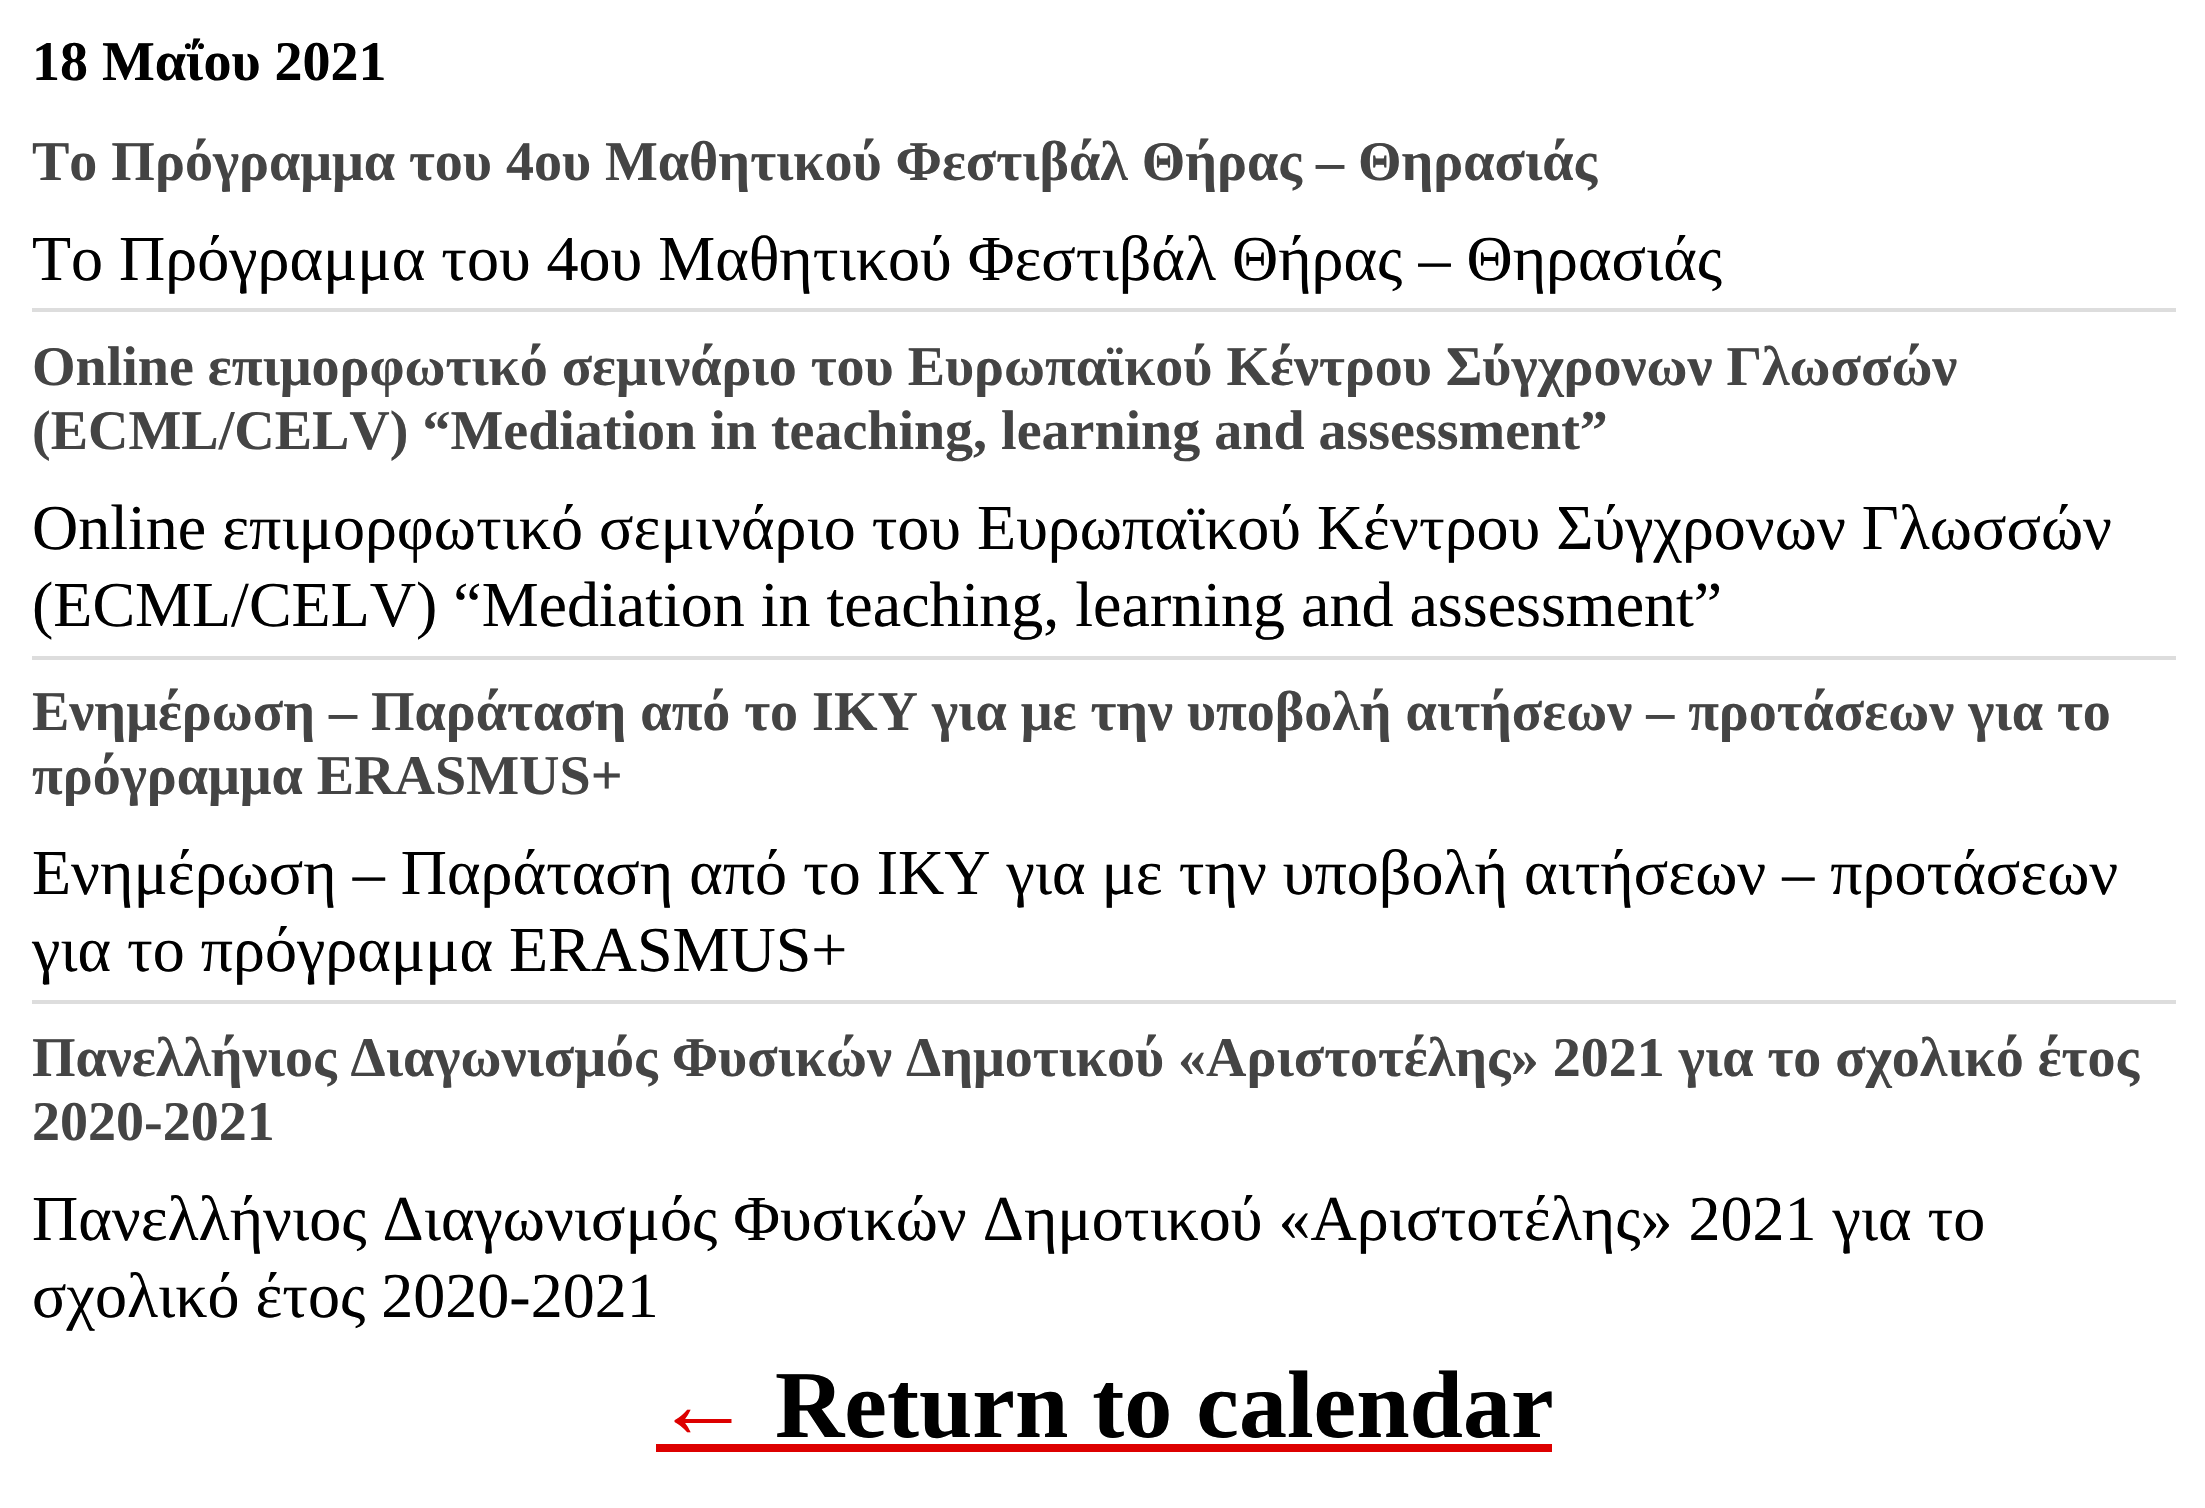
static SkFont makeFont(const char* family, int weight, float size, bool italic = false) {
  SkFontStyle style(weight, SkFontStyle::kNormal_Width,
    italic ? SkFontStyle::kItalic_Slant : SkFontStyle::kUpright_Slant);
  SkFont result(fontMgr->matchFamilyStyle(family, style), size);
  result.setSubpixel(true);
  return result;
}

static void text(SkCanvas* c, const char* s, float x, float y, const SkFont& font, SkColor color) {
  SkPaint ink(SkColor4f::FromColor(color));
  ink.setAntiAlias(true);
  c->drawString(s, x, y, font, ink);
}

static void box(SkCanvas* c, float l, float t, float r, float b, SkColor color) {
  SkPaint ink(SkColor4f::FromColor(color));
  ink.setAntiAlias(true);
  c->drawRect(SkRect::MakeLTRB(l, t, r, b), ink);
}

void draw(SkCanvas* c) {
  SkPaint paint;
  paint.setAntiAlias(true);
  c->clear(0xffffffff);
  SkFont face1 = makeFont("Liberation Serif", 700, 56);
  text(c, "18 Μαΐου 2021", 32, 80, face1, 0xff000000);
  box(c, 32, 308, 2176, 312, 0xffdddddd);
  text(c, "Το Πρόγραμμα του 4ου Μαθητικού Φεστιβάλ Θήρας – Θηρασιάς", 32, 180, face1, 0xff444444);
  SkFont face2 = makeFont("Liberation Serif", 400, 64);
  text(c, "Το Πρόγραμμα του 4ου Μαθητικού Φεστιβάλ Θήρας – Θηρασιάς", 32, 280, face2, 0xff000000);
  box(c, 32, 656, 2176, 660, 0xffdddddd);
  text(c, "Online επιμορφωτικό σεμινάριο του Ευρωπαϊκού Κέντρου Σύγχρονων Γλωσσών", 32, 385, face1, 0xff444444);
  text(c, "(ECML/CELV) “Mediation in teaching, learning and assessment”", 32, 449, face1, 0xff444444);
  text(c, "Online επιμορφωτικό σεμινάριο του Ευρωπαϊκού Κέντρου Σύγχρονων Γλωσσών", 32, 549, face2, 0xff000000);
  text(c, "(ECML/CELV) “Mediation in teaching, learning and assessment”", 32, 626, face2, 0xff000000);
  box(c, 32, 1000, 2176, 1004, 0xffdddddd);
  text(c, "Ενημέρωση – Παράταση από το IΚΥ για με την υποβολή αιτήσεων – προτάσεων για το", 32, 730, face1, 0xff444444);
  text(c, "πρόγραμμα ERASMUS+", 32, 794, face1, 0xff444444);
  text(c, "Ενημέρωση – Παράταση από το IΚΥ για με την υποβολή αιτήσεων – προτάσεων", 32, 894, face2, 0xff000000);
  text(c, "για το πρόγραμμα ERASMUS+", 32, 971, face2, 0xff000000);
  text(c, "Πανελλήνιος Διαγωνισμός Φυσικών Δημοτικού «Αριστοτέλης» 2021 για το σχολικό έτος", 32, 1076, face1, 0xff444444);
  text(c, "2020-2021", 32, 1140, face1, 0xff444444);
  text(c, "Πανελλήνιος Διαγωνισμός Φυσικών Δημοτικού «Αριστοτέλης» 2021 για το", 32, 1240, face2, 0xff000000);
  text(c, "σχολικό έτος 2020-2021", 32, 1317, face2, 0xff000000);
  SkFont face3 = makeFont("Liberation Serif", 700, 96);
  text(c, "←", 655, 1437, face3, 0xffdd0000);
  box(c, 656, 1444, 1552, 1452, 0xffdd0000);
  text(c, "Return to calendar", 775, 1437, face3, 0xff000000);
}
